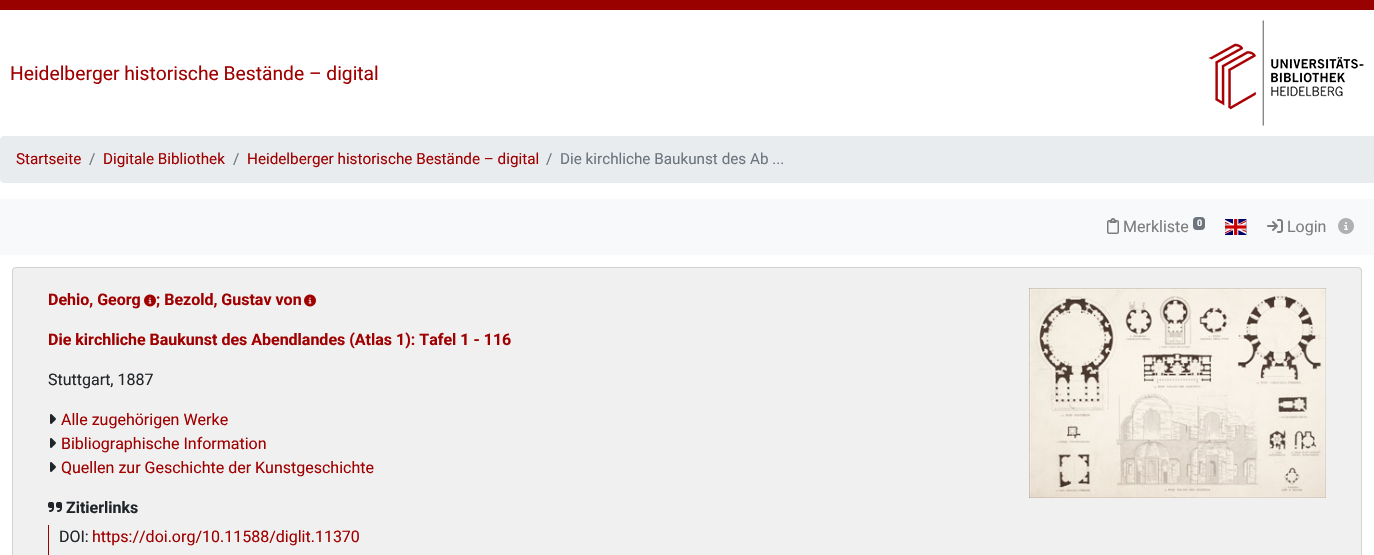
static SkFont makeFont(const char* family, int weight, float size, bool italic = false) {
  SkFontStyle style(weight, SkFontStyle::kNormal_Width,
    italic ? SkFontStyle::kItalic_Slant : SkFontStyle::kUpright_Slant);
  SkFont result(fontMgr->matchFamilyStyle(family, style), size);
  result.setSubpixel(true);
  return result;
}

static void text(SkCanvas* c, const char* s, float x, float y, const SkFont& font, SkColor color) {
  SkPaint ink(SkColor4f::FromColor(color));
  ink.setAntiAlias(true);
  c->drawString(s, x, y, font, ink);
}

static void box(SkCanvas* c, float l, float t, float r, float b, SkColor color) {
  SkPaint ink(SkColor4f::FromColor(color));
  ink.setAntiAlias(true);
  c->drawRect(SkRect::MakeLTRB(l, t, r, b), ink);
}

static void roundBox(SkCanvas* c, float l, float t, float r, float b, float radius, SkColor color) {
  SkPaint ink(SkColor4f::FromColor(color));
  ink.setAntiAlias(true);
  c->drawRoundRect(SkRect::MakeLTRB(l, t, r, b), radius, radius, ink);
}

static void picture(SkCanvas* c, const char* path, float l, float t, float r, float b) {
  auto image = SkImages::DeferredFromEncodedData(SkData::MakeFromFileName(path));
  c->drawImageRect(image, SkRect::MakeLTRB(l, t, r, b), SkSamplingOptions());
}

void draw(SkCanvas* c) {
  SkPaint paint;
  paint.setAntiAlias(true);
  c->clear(0xffffffff);
  box(c, 0, 0, 1374, 10, 0xff990000);
  SkFont face1 = makeFont("Roboto", 400, 19.25f);
  text(c, "Heidelberger historische Bestände – digital", 10, 80, face1, 0xffa00000);
  picture(c, "img_01.png", 1208, 20, 1364, 126);
  paint.setColor(0xffe9ecef);
  c->drawPath(SkPathBuilder().moveTo(4, 136).lineTo(1374, 136).lineTo(1374, 183).lineTo(4, 183).cubicTo(2, 183, 0, 181, 0, 179).lineTo(0, 140).cubicTo(0, 138, 2, 136, 4, 136).close().detach(), paint);
  SkFont face2 = makeFont("Roboto", 400, 15.25f);
  text(c, "Startseite", 16, 164, face2, 0xffa00000);
  text(c, "/", 89, 164, face2, 0xff6c757d);
  text(c, "Digitale Bibliothek", 103, 164, face2, 0xffa00000);
  text(c, "/", 233, 164, face2, 0xff6c757d);
  text(c, "Heidelberger historische Bestände – digital", 247, 164, face2, 0xffa00000);
  text(c, "/", 546, 164, face2, 0xff6c757d);
  text(c, "Die kirchliche Baukunst des Ab ...", 560, 164, face2, 0xff6c757d);
  box(c, 0, 199, 1374, 255, 0xfff8f9fa);
  picture(c, "img_02.png", 1107, 218, 1119, 234);
  SkFont face3 = makeFont("Roboto", 400, 16);
  text(c, "Merkliste", 1123, 232, face3, 0xff7c7d7d);
  roundBox(c, 1193, 217, 1205, 230, 4, 0xff6c757d);
  SkFont face4 = makeFont("Roboto", 700, 9);
  text(c, "0", 1197, 226, face4, 0xffffffff);
  picture(c, "img_03.png", 1225, 219, 1247, 235);
  picture(c, "img_04.png", 1267, 219, 1283, 233);
  text(c, "Login", 1287, 232, face3, 0xff7c7d7d);
  picture(c, "img_05.png", 1338, 218, 1354, 234);
  roundBox(c, 12, 267, 1362, 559, 4, 0xfff0f0f0);
  paint.setStyle(SkPaint::kStroke_Style);
  paint.setStrokeWidth(1);
  paint.setColor(0x1f000000);
  c->drawRoundRect(SkRect::MakeLTRB(12.5f, 267.5f, 1361.5f, 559.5f), 3.5f, 3.5f, paint);
  SkFont face5 = makeFont("Roboto", 700, 16);
  text(c, "Dehio, Georg", 48, 305, face5, 0xffa00000);
  picture(c, "img_06.png", 144, 294, 156, 307);
  text(c, "; Bezold, Gustav von", 156, 305, face5, 0xffa00000);
  picture(c, "img_06.png", 304, 294, 316, 307);
  text(c, "Die kirchliche Baukunst des Abendlandes (Atlas 1): Tafel 1 - 116", 48, 345, face5, 0xffa00000);
  text(c, "Stuttgart, 1887", 48, 385, face3, 0xff212529);
  picture(c, "img_07.png", 50, 414, 56, 424);
  text(c, "Alle zugehörigen Werke", 61, 425, face3, 0xffa00000);
  picture(c, "img_07.png", 50, 438, 56, 448);
  text(c, "Bibliographische Information", 61, 449, face3, 0xffa00000);
  picture(c, "img_07.png", 50, 462, 56, 472);
  text(c, "Quellen zur Geschichte der Kunstgeschichte", 61, 473, face3, 0xffa00000);
  picture(c, "img_08.png", 48, 502, 62, 512);
  text(c, "Zitierlinks", 66, 513, face5, 0xff212529);
  box(c, 48, 525, 49, 555, 0xff990000);
  text(c, "DOI:", 59, 542, face3, 0xff212529);
  text(c, "https://doi.org/10.11588/diglit.11370", 92, 542, face3, 0xffa00000);
  picture(c, "img_09.png", 1029, 288, 1326, 498);
}
